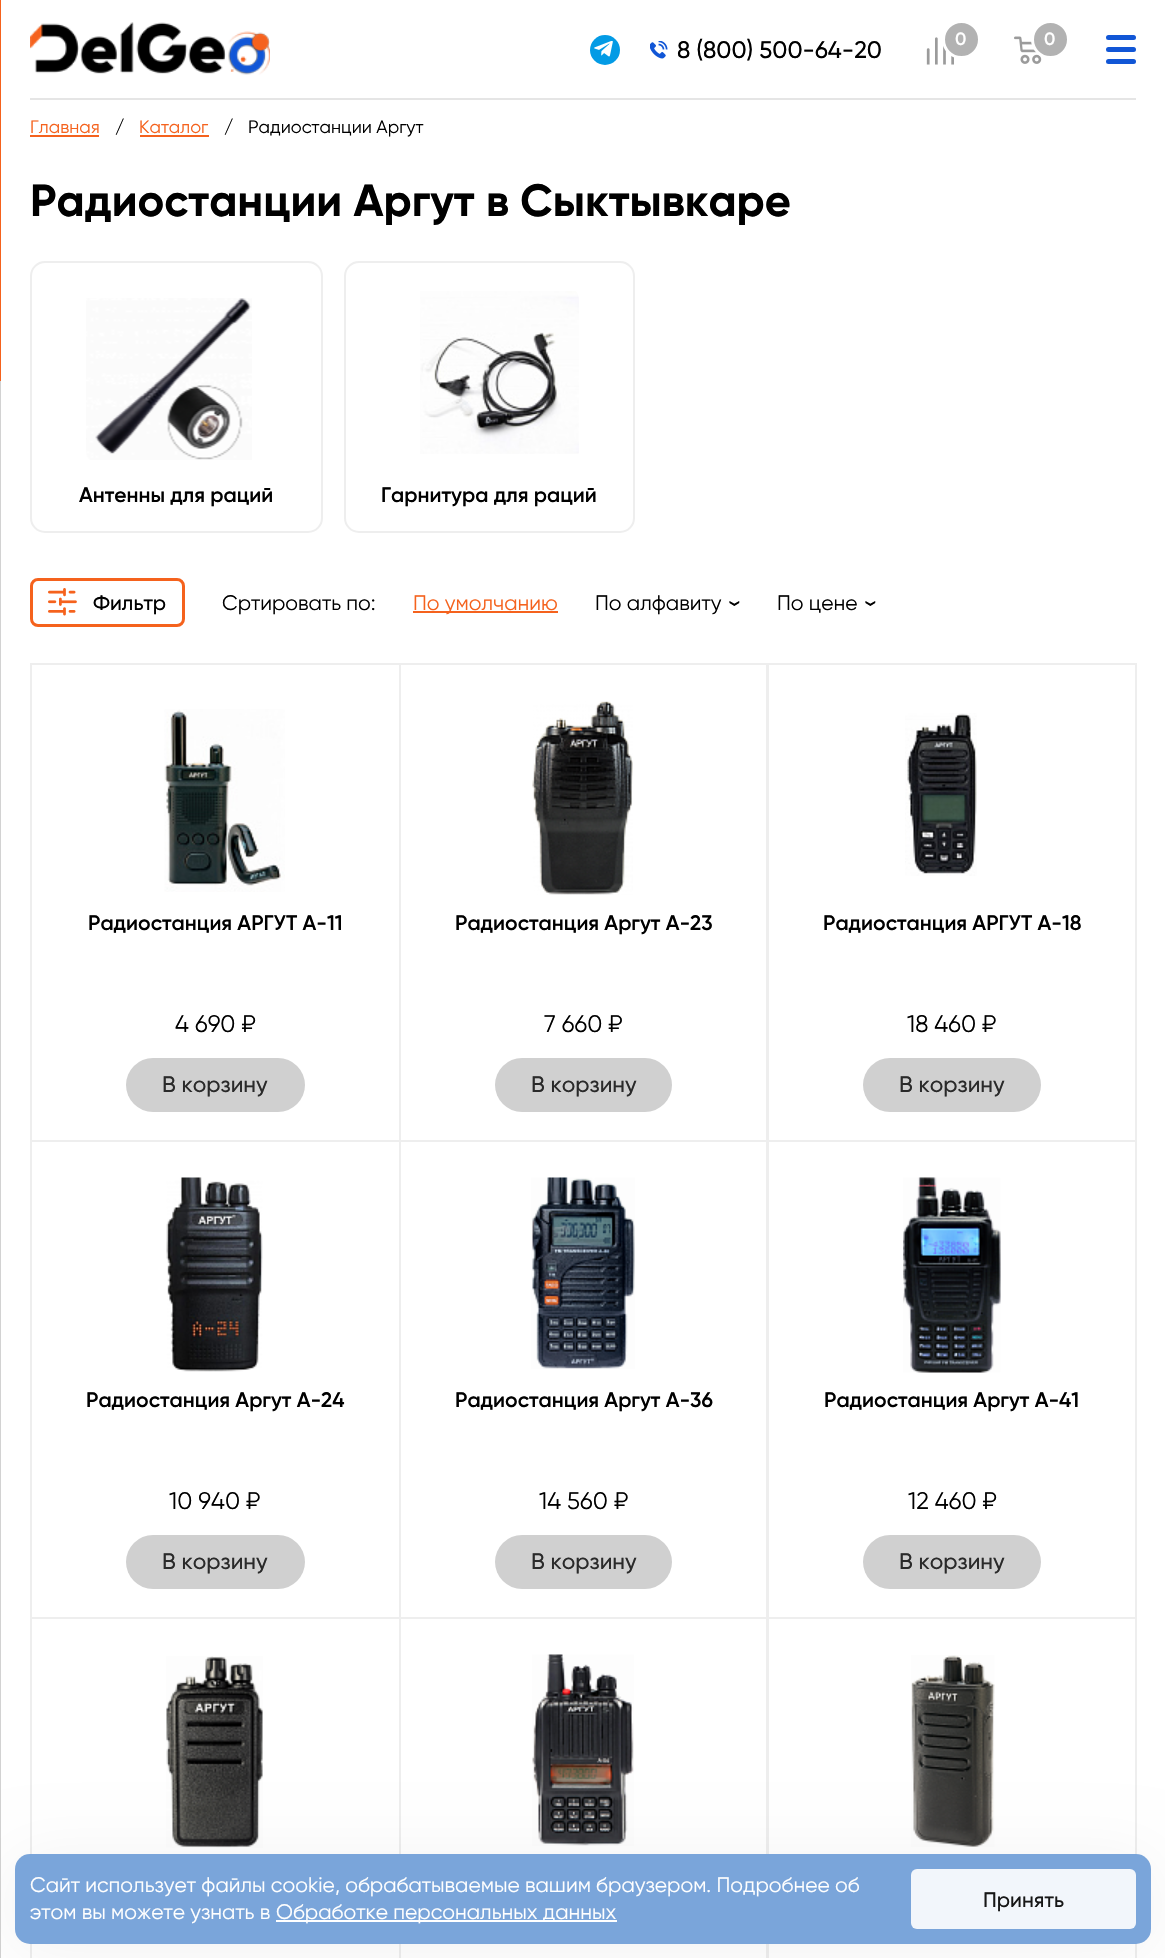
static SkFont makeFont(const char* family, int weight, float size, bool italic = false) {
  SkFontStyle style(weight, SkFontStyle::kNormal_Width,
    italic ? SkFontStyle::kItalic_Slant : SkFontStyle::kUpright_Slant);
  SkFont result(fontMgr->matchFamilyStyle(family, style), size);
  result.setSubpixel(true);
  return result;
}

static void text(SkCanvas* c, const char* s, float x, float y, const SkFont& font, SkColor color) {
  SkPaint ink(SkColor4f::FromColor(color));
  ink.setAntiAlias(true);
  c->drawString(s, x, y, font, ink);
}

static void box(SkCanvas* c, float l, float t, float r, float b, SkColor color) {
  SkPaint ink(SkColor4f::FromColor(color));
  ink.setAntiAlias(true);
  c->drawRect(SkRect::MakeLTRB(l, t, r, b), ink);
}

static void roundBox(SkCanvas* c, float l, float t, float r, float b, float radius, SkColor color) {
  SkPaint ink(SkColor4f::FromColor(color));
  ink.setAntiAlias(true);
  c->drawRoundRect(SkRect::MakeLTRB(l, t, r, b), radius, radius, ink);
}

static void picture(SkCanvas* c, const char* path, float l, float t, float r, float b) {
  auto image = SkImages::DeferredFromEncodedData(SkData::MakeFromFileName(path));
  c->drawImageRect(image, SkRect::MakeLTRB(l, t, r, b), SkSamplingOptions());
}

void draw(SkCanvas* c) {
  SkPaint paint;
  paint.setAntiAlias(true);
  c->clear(0xffffffff);
  picture(c, "img_01.png", 30, 22, 270, 75);
  paint.setColor(0xff039be5);
  c->drawCircle(605, 50, 15, paint);
  picture(c, "img_02.png", 594, 41, 613, 57);
  picture(c, "img_03.png", 650, 41, 668, 59);
  SkFont face1 = makeFont("Gilroy", 500, 24);
  text(c, "8 (800) 500-64-20", 677, 58, face1, 0xff000000);
  picture(c, "img_04.png", 926, 37, 954, 65);
  paint.setColor(0xffb2b2b2);
  c->drawCircle(961.5f, 39.5f, 18, paint);
  paint.setStyle(SkPaint::kStroke_Style);
  paint.setStrokeWidth(3);
  paint.setColor(0xffffffff);
  c->drawCircle(961.5f, 39.5f, 18, paint);
  SkFont face2 = makeFont("Gilroy", 600, 18);
  text(c, "0", 955, 45, face2, 0xffffffff);
  picture(c, "img_05.png", 1014, 36, 1042, 64);
  paint.setStyle(SkPaint::kFill_Style);
  paint.setColor(0xffb2b2b2);
  c->drawCircle(1050.5f, 39.5f, 18, paint);
  paint.setStyle(SkPaint::kStroke_Style);
  paint.setColor(0xffffffff);
  c->drawCircle(1050.5f, 39.5f, 18, paint);
  text(c, "0", 1044, 45, face2, 0xffffffff);
  roundBox(c, 1106, 35, 1136, 40, 2.5f, 0xff1156d6);
  roundBox(c, 1106, 47, 1136, 52, 2.5f, 0xff1156d6);
  roundBox(c, 1106, 59, 1136, 64, 2.5f, 0xff1156d6);
  box(c, 30, 98, 1136, 100, 0xffe5e5e5);
  SkFont face3 = makeFont("Gilroy", 400, 18);
  text(c, "Главная", 30, 133, face3, 0xfff5621d);
  box(c, 30, 135, 99, 137, 0xfff5621d);
  text(c, "/", 115, 133, face3, 0xff000000);
  text(c, "Каталог", 139, 133, face3, 0xfff5621d);
  box(c, 140, 135, 209, 137, 0xfff5621d);
  text(c, "/", 224, 133, face3, 0xff000000);
  text(c, "Радиостанции Аргут", 248, 133, face3, 0xff000000);
  SkFont face4 = makeFont("Gilroy", 700, 45);
  text(c, "Радиостанции Аргут в Сыктывкаре", 30, 216, face4, 0xff000000);
  box(c, 0, 381, 1, 1958, 0xffd2d2d2);
  box(c, 0, 0, 1, 381, 0xfff5621d);
  paint.setStrokeWidth(2);
  paint.setColor(0xffeeeeee);
  c->drawRoundRect(SkRect::MakeLTRB(31, 262, 322, 532), 14, 14, paint);
  picture(c, "img_06.png", 86, 298, 252, 460);
  SkFont face5 = makeFont("Gilroy", 600, 21);
  text(c, "Антенны для раций", 79, 502, face5, 0xff000000);
  c->drawRoundRect(SkRect::MakeLTRB(345, 262, 634, 532), 14, 14, paint);
  picture(c, "img_07.png", 420, 291, 579, 454);
  text(c, "Гарнитура для раций", 381, 502, face5, 0xff000000);
  paint.setStrokeWidth(3);
  paint.setColor(0xfff5621d);
  c->drawRoundRect(SkRect::MakeLTRB(31.5f, 579.5f, 183.5f, 625.5f), 6.5f, 6.5f, paint);
  picture(c, "img_08.png", 48, 588, 77, 616);
  SkFont face6 = makeFont("Gilroy", 500, 21);
  text(c, "Фильтр", 93, 610, face6, 0xff000000);
  SkFont face7 = makeFont("Gilroy", 400, 21);
  text(c, "Сртировать по:", 222, 610, face7, 0xff000000);
  box(c, 413, 611, 558, 613, 0xfff5621d);
  text(c, "По умолчанию", 413, 610, face7, 0xfff5621d);
  text(c, "По алфавиту", 595, 610, face7, 0xff000000);
  SkFont face8 = makeFont("Gilroy", 400, 27);
  c->save();
  c->rotate(90, 726, 599);
  text(c, "›", 726, 599, face8, 0xff000000);
  c->restore();
  text(c, "По цене", 777, 610, face7, 0xff000000);
  c->save();
  c->rotate(90, 862, 599);
  text(c, "›", 862, 599, face8, 0xff000000);
  c->restore();
  paint.setStrokeWidth(2);
  paint.setColor(0xffeeeeee);
  c->drawRect(SkRect::MakeLTRB(31, 664, 400, 1141), paint);
  picture(c, "img_09.png", 164, 709, 285, 892);
  text(c, "Радиостанция АРГУТ А-11", 88, 930, face5, 0xff000000);
  SkFont face9 = makeFont("Gilroy", 400, 24);
  text(c, "4 690 ₽", 175, 1032, face9, 0xff000000);
  roundBox(c, 126, 1058, 305, 1112, 27, 0xffd0d0d0);
  SkFont face10 = makeFont("Gilroy", 500, 22.5f);
  text(c, "В корзину", 162, 1092, face10, 0xff2a2a2a);
  c->drawRect(SkRect::MakeLTRB(400, 664, 767, 1141), paint);
  picture(c, "img_10.png", 532, 701, 633, 895);
  text(c, "Радиостанция Аргут А-23", 455, 930, face5, 0xff000000);
  text(c, "7 660 ₽", 544, 1032, face9, 0xff000000);
  roundBox(c, 495, 1058, 672, 1112, 27, 0xffd0d0d0);
  text(c, "В корзину", 531, 1092, face10, 0xff2a2a2a);
  c->drawRect(SkRect::MakeLTRB(768, 664, 1136, 1141), paint);
  picture(c, "img_11.png", 905, 713, 977, 876);
  text(c, "Радиостанция АРГУТ А-18", 823, 930, face5, 0xff000000);
  text(c, "18 460 ₽", 907, 1032, face9, 0xff000000);
  roundBox(c, 863, 1058, 1041, 1112, 27, 0xffd0d0d0);
  text(c, "В корзину", 899, 1092, face10, 0xff2a2a2a);
  c->drawRect(SkRect::MakeLTRB(31, 1141, 400, 1618), paint);
  picture(c, "img_12.png", 166, 1177, 263, 1372);
  text(c, "Радиостанция Аргут А-24", 86, 1407, face5, 0xff000000);
  text(c, "10 940 ₽", 169, 1509, face9, 0xff000000);
  roundBox(c, 126, 1535, 305, 1589, 27, 0xffd0d0d0);
  text(c, "В корзину", 162, 1569, face10, 0xff2a2a2a);
  c->drawRect(SkRect::MakeLTRB(400, 1141, 767, 1618), paint);
  picture(c, "img_13.png", 531, 1177, 635, 1369);
  text(c, "Радиостанция Аргут А-36", 455, 1407, face5, 0xff000000);
  text(c, "14 560 ₽", 539, 1509, face9, 0xff000000);
  roundBox(c, 495, 1535, 672, 1589, 27, 0xffd0d0d0);
  text(c, "В корзину", 531, 1569, face10, 0xff2a2a2a);
  c->drawRect(SkRect::MakeLTRB(768, 1141, 1136, 1618), paint);
  picture(c, "img_14.png", 903, 1177, 1001, 1373);
  text(c, "Радиостанция Аргут А-41", 824, 1407, face5, 0xff000000);
  text(c, "12 460 ₽", 908, 1509, face9, 0xff000000);
  roundBox(c, 863, 1535, 1041, 1589, 27, 0xffd0d0d0);
  text(c, "В корзину", 899, 1569, face10, 0xff2a2a2a);
  c->drawRect(SkRect::MakeLTRB(31, 1618, 400, 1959), paint);
  picture(c, "img_15.png", 166, 1656, 263, 1848);
  c->drawRect(SkRect::MakeLTRB(400, 1618, 767, 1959), paint);
  picture(c, "img_16.png", 532, 1654, 634, 1846);
  c->drawRect(SkRect::MakeLTRB(768, 1618, 1136, 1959), paint);
  picture(c, "img_17.png", 911, 1655, 995, 1847);
  paint.setStyle(SkPaint::kFill_Style);
  paint.setColor(0x0d000000);
  paint.setMaskFilter(SkMaskFilter::MakeBlur(kNormal_SkBlurStyle, 32.5f));
  c->drawRoundRect(SkRect::MakeLTRB(15, 1860, 1151, 1950), 15, 15, paint);
  paint.setMaskFilter(nullptr);
  roundBox(c, 15, 1854, 1151, 1944, 15, 0xff7aa5da);
  text(c, "Сайт использует файлы cookie, обрабатываемые вашим браузером. Подробнее об", 30, 1892, face7, 0xffffffff);
  text(c, "этом вы можете узнать в", 30, 1919, face7, 0xffffffff);
  box(c, 276, 1920, 617, 1922, 0xffffffff);
  text(c, "Обработке персональных данных", 276, 1919, face7, 0xffffffff);
  roundBox(c, 911, 1869, 1136, 1929, 6, 0xfff2f6fb);
  text(c, "Принять", 983, 1907, face6, 0xff171717);
}
